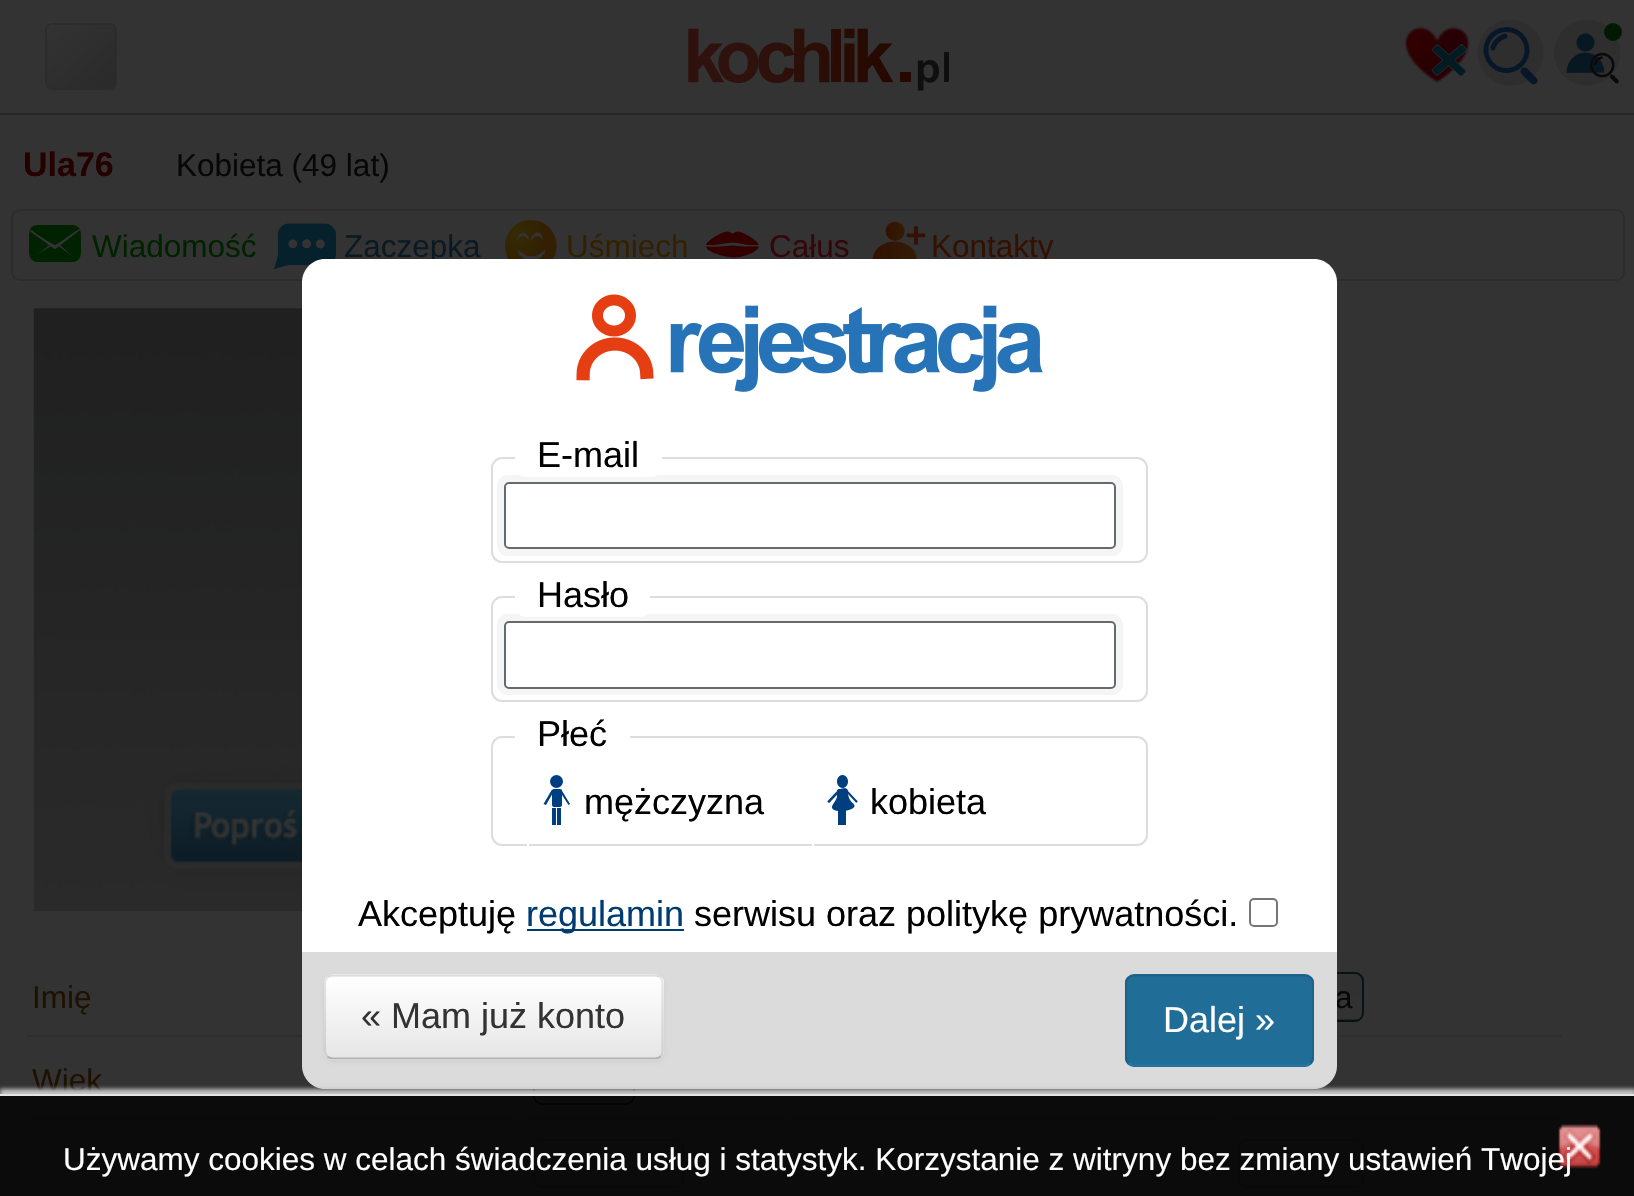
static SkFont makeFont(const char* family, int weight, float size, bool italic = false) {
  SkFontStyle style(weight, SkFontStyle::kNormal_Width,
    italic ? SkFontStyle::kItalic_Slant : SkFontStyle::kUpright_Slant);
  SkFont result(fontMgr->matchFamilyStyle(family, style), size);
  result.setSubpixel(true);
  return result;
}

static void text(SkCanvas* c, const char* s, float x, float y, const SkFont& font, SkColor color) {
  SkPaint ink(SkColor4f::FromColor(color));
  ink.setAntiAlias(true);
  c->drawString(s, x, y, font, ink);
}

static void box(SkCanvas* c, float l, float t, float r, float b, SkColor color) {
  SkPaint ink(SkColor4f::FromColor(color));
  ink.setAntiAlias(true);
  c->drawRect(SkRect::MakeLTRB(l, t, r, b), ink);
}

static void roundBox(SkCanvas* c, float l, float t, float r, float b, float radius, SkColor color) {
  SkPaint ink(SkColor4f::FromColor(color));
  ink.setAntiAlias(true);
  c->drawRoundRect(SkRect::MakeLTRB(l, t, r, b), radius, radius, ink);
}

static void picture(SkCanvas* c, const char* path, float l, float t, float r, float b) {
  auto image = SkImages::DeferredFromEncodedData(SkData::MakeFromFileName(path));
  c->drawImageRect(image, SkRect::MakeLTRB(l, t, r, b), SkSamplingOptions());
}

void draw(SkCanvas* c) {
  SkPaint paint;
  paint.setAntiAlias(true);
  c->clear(0xff333333);
  box(c, 0, 113, 1634, 115, 0xff262626);
  {
    const SkColor colors[] = {0xff333333, 0xff2b2a2a};
    const float stops[] = {0, 1};
    const SkPoint ends[] = {{50, 23}, {112, 90}};
    paint.setShader(SkGradientShader::MakeLinear(ends, colors, stops, 2, SkTileMode::kClamp));
    paint.setAlpha(255);
  }
  c->drawRect(SkRect::MakeLTRB(47, 25, 115, 88), paint);
  paint.setStyle(SkPaint::kStroke_Style);
  paint.setStrokeWidth(2);
  paint.setShader(nullptr);
  paint.setColor(0xff2c2c2c);
  c->drawRoundRect(SkRect::MakeLTRB(46, 24, 116, 89), 6, 6, paint);
  picture(c, "img_01.png", 688, 28, 949, 91);
  picture(c, "img_02.png", 1404, 26, 1471, 83);
  picture(c, "img_03.png", 1477, 19, 1544, 86);
  picture(c, "img_04.png", 1554, 19, 1621, 86);
  paint.setStyle(SkPaint::kFill_Style);
  paint.setColor(0xff001a00);
  c->drawCircle(1613, 32, 9, paint);
  SkFont face1 = makeFont("Liberation Sans", 700, 34);
  text(c, "Ula76", 23, 176, face1, 0xff250000);
  SkFont face2 = makeFont("Liberation Sans", 400, 31.5f);
  text(c, "Kobieta (49 lat)", 176, 176, face2, 0xff070707);
  paint.setStyle(SkPaint::kStroke_Style);
  paint.setColor(0xff2c2c2c);
  c->drawRoundRect(SkRect::MakeLTRB(12, 210, 1624, 280), 8, 8, paint);
  picture(c, "img_05.png", 29, 225, 81, 262);
  text(c, "Wiadomość", 92, 257, face2, 0xff002200);
  picture(c, "img_06.png", 273, 223, 337, 270);
  text(c, "Zaczepka", 344, 257, face2, 0xff0b1a22);
  picture(c, "img_07.png", 504, 220, 557, 259);
  text(c, "Uśmiech", 566, 257, face2, 0xff332001);
  picture(c, "img_08.png", 706, 231, 759, 258);
  text(c, "Całus", 769, 257, face2, 0xff33060a);
  picture(c, "img_09.png", 872, 221, 926, 259);
  text(c, "Kontakty", 931, 257, face2, 0xff331002);
  picture(c, "img_10.png", 33, 308, 302, 912);
  box(c, 27, 1035, 302, 1037, 0xff2f2e2c);
  text(c, "Imię", 32, 1008, face2, 0xff1e1102);
  box(c, 1337, 1035, 1562, 1037, 0xff2f2e2c);
  roundBox(c, 1238, 972, 1364, 1022, 9, 0xff232424);
  c->save();
  c->clipPath(SkPathBuilder().moveTo(1247, 972).lineTo(1355, 972).cubicTo(1360, 972, 1364, 976, 1364, 981).lineTo(1364, 1013).cubicTo(1364, 1018, 1360, 1022, 1355, 1022).lineTo(1247, 1022).cubicTo(1242, 1022, 1238, 1018, 1238, 1013).lineTo(1238, 981).cubicTo(1238, 976, 1242, 972, 1247, 972).close().detach(), true);
  paint.setStyle(SkPaint::kFill_Style);
  {
    const SkColor colors[] = {0xff313131, 0xff323232};
    const float stops[] = {0, 1};
    const SkPoint ends[] = {{1301, 974}, {1301, 1019}};
    paint.setShader(SkGradientShader::MakeLinear(ends, colors, stops, 2, SkTileMode::kClamp));
    paint.setAlpha(255);
  }
  c->drawRect(SkRect::MakeLTRB(1337, 974, 1364, 1019), paint);
  c->restore();
  paint.setStyle(SkPaint::kStroke_Style);
  paint.setShader(nullptr);
  paint.setColor(0xff081116);
  c->drawRoundRect(SkRect::MakeLTRB(1239, 973, 1363, 1021), 8, 8, paint);
  text(c, "a", 1335, 1008, face2, 0xff070707);
  box(c, 27, 1118, 518, 1120, 0xff2f2e2c);
  text(c, "Wiek", 32, 1091, face2, 0xff1e1102);
  box(c, 522, 1118, 788, 1120, 0xff2f2e2c);
  c->drawRoundRect(SkRect::MakeLTRB(534, 1056, 634, 1104), 8, 8, paint);
  box(c, 792, 1118, 1222, 1120, 0xff2f2e2c);
  box(c, 1226, 1118, 1562, 1120, 0xff2f2e2c);
  paint.setColor(0xff2c2c2c);
  c->drawRoundRect(SkRect::MakeLTRB(534, 1140, 683, 1187), 8, 8, paint);
  c->drawRoundRect(SkRect::MakeLTRB(1239, 1140, 1363, 1187), 8, 8, paint);
  paint.setStyle(SkPaint::kFill_Style);
  paint.setColor(0xffffffff);
  c->drawPath(SkPathBuilder().moveTo(325, 259).lineTo(1314, 259).cubicTo(1326.5f, 259, 1337, 269.5f, 1337, 282).lineTo(1337, 952).lineTo(302, 952).lineTo(302, 282).cubicTo(302, 269.5f, 312.5f, 259, 325, 259).close().detach(), paint);
  picture(c, "img_11.png", 576, 294, 1043, 392);
  paint.setStyle(SkPaint::kStroke_Style);
  paint.setColor(0xffdddddd);
  c->drawRoundRect(SkRect::MakeLTRB(492, 458, 1147, 562), 10, 10, paint);
  paint.setStrokeWidth(7);
  paint.setColor(0xfff5f5f5);
  c->drawRoundRect(SkRect::MakeLTRB(500.5f, 478.5f, 1119.5f, 552.5f), 7.5f, 7.5f, paint);
  roundBox(c, 515, 432, 662, 477, 11, 0xffffffff);
  SkFont face3 = makeFont("Liberation Sans", 400, 36);
  text(c, "E-mail", 537, 467, face3, 0xff000000);
  paint.setStrokeWidth(2);
  paint.setColor(0xff646b6e);
  c->drawRoundRect(SkRect::MakeLTRB(505, 483, 1115, 548), 4, 4, paint);
  paint.setColor(0xffdddddd);
  c->drawRoundRect(SkRect::MakeLTRB(492, 597, 1147, 701), 10, 10, paint);
  paint.setStrokeWidth(7);
  paint.setColor(0xfff5f5f5);
  c->drawRoundRect(SkRect::MakeLTRB(500.5f, 617.5f, 1119.5f, 691.5f), 7.5f, 7.5f, paint);
  roundBox(c, 515, 572, 650, 617, 11, 0xffffffff);
  text(c, "Hasło", 537, 607, face3, 0xff000000);
  paint.setStyle(SkPaint::kFill_Style);
  paint.setColor(0xffffffff);
  c->drawRoundRect(SkRect::MakeLTRB(505, 622, 1115, 688), 4, 4, paint);
  paint.setStyle(SkPaint::kStroke_Style);
  paint.setStrokeWidth(2);
  paint.setColor(0xff646b6e);
  c->drawRoundRect(SkRect::MakeLTRB(505, 622, 1115, 688), 4, 4, paint);
  paint.setColor(0xffdddddd);
  c->drawRoundRect(SkRect::MakeLTRB(492, 737, 1147, 845), 10, 10, paint);
  roundBox(c, 515, 711, 630, 756, 11, 0xffffffff);
  text(c, "Płeć", 537, 746, face3, 0xff000000);
  text(c, "mężczyzna", 584, 814, face3, 0xff000000);
  box(c, 527, 844, 529, 851, 0xffffffff);
  paint.setStyle(SkPaint::kFill_Style);
  paint.setColor(0xff003f7f);
  c->drawCircle(556.5f, 781.5f, 6.5f, paint);
  roundBox(c, 552, 789, 562, 807, 2, 0xff003f7f);
  box(c, 552, 808, 556, 825, 0xff003f7f);
  box(c, 557, 808, 561, 825, 0xff003f7f);
  c->drawPath(SkPathBuilder().moveTo(559.5f, 791).lineTo(561.5f, 790).lineTo(570, 804).lineTo(568.5f, 805).close().moveTo(552, 789.5f).lineTo(554, 791).lineTo(546, 805).lineTo(543.5f, 804).close().detach(), paint);
  picture(c, "img_12.png", 827, 775, 858, 825);
  text(c, "kobieta", 870, 814, face3, 0xff000000);
  box(c, 812, 844, 814, 851, 0xffffffff);
  text(c, "Akceptuję", 358, 926, face3, 0xff000000);
  box(c, 527, 929, 684, 931, 0xff003c70);
  text(c, "regulamin", 526, 926, face3, 0xff003c70);
  text(c, "serwisu oraz politykę prywatności.", 694, 926, face3, 0xff000000);
  paint.setStyle(SkPaint::kStroke_Style);
  paint.setColor(0xff767676);
  c->drawRoundRect(SkRect::MakeLTRB(1250, 899, 1277, 926), 4, 4, paint);
  paint.setStyle(SkPaint::kFill_Style);
  paint.setColor(0xffdbdbdb);
  c->drawPath(SkPathBuilder().moveTo(302, 952).lineTo(1337, 952).lineTo(1337, 1066).cubicTo(1337, 1078.5f, 1326.5f, 1089, 1314, 1089).lineTo(325, 1089).cubicTo(312.5f, 1089, 302, 1078.5f, 302, 1066).close().detach(), paint);
  paint.setColor(0x0d000000);
  paint.setMaskFilter(SkMaskFilter::MakeBlur(kNormal_SkBlurStyle, 2));
  c->drawRoundRect(SkRect::MakeLTRB(324, 977, 664, 1062), 9, 9, paint);
  paint.setMaskFilter(nullptr);
  roundBox(c, 324, 974, 664, 1060, 9, 0xfff5f5f5);
  c->save();
  c->clipPath(SkPathBuilder().moveTo(333, 974).lineTo(655, 974).cubicTo(660, 974, 664, 978, 664, 983).lineTo(664, 1051).cubicTo(664, 1056, 660, 1060, 655, 1060).lineTo(333, 1060).cubicTo(328, 1060, 324, 1056, 324, 1051).lineTo(324, 983).cubicTo(324, 978, 328, 974, 333, 974).close().detach(), true);
  {
    const SkColor colors[] = {0xffffffff, 0xffe6e6e6};
    const float stops[] = {0, 1};
    const SkPoint ends[] = {{494, 977}, {494, 1058}};
    paint.setShader(SkGradientShader::MakeLinear(ends, colors, stops, 2, SkTileMode::kClamp));
    paint.setAlpha(255);
  }
  c->drawRect(SkRect::MakeLTRB(324, 977, 664, 1058), paint);
  c->restore();
  paint.setStyle(SkPaint::kStroke_Style);
  paint.setStrokeWidth(2.2f);
  paint.setShader(nullptr);
  paint.setColor(0xffb3b3b3);
  c->drawPath(SkPathBuilder().moveTo(660.5f, 1056.5f).cubicTo(659, 1058, 657, 1058.5f, 655, 1058.5f).lineTo(333, 1058.5f).cubicTo(331, 1058.5f, 329, 1058, 327.5f, 1056.5f).detach(), paint);
  paint.setColor(0x1a000000);
  c->drawPath(SkPathBuilder().moveTo(327.5f, 1056.5f).cubicTo(326, 1055, 325, 1053, 325, 1051).lineTo(325, 983).cubicTo(325, 981, 326, 979, 327.5f, 977.5f).cubicTo(329, 976, 331, 975.5f, 333, 975.5f).lineTo(655, 975.5f).cubicTo(657, 975.5f, 659, 976, 660.5f, 977.5f).cubicTo(662, 979, 662.5f, 981, 662.5f, 983).lineTo(662.5f, 1051).cubicTo(662.5f, 1053, 662, 1055, 660.5f, 1056.5f).detach(), paint);
  text(c, "« Mam już konto", 361, 1028, face3, 0xff333333);
  roundBox(c, 1125, 974, 1314, 1067, 9, 0xff206d97);
  c->save();
  c->clipPath(SkPathBuilder().moveTo(1134, 974).lineTo(1305, 974).cubicTo(1310, 974, 1314, 978, 1314, 983).lineTo(1314, 1058).cubicTo(1314, 1063, 1310, 1067, 1305, 1067).lineTo(1134, 1067).cubicTo(1129, 1067, 1125, 1063, 1125, 1058).lineTo(1125, 983).cubicTo(1125, 978, 1129, 974, 1134, 974).close().detach(), true);
  box(c, 1125, 977, 1314, 1064, 0xff206d97);
  c->restore();
  paint.setColor(0xff2376a3);
  c->drawPath(SkPathBuilder().moveTo(1310.5f, 1063).cubicTo(1309, 1064.5f, 1307, 1065.5f, 1305, 1065.5f).lineTo(1134, 1065.5f).cubicTo(1132, 1065.5f, 1130, 1064.5f, 1128.5f, 1063).detach(), paint);
  paint.setColor(0x1a000000);
  c->drawPath(SkPathBuilder().moveTo(1128.5f, 1063).cubicTo(1127, 1061.5f, 1126, 1059.5f, 1126, 1057.5f).lineTo(1126, 983).cubicTo(1126, 981, 1127, 979, 1128.5f, 977.5f).cubicTo(1130, 976, 1132, 975.5f, 1134, 975.5f).lineTo(1305, 975.5f).cubicTo(1307, 975.5f, 1309, 976, 1310.5f, 977.5f).cubicTo(1312, 979, 1313, 981, 1313, 983).lineTo(1313, 1057.5f).cubicTo(1313, 1059.5f, 1312, 1061.5f, 1310.5f, 1063).detach(), paint);
  text(c, "Dalej »", 1163, 1032, face3, 0xffffffff);
  c->save();
  c->clipRect(SkRect::MakeLTRB(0, 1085, 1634, 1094));
  paint.setStyle(SkPaint::kFill_Style);
  paint.setColor(0xffc1c1c1);
  paint.setMaskFilter(SkMaskFilter::MakeBlur(kNormal_SkBlurStyle, 2));
  c->drawRect(SkRect::MakeLTRB(0, 1089, 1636, 1193), paint);
  paint.setMaskFilter(nullptr);
  c->restore();
  box(c, 0, 1096, 1634, 1196, 0xcc000000);
  picture(c, "img_13.png", 1558, 1124, 1601, 1169);
  box(c, 0, 1094, 1634, 1096, 0xffe5e5e5);
  text(c, "Używamy cookies w celach świadczenia usług i statystyk. Korzystanie z witryny bez zmiany ustawień Twojej", 63, 1170, face2, 0xffffffff);
}
